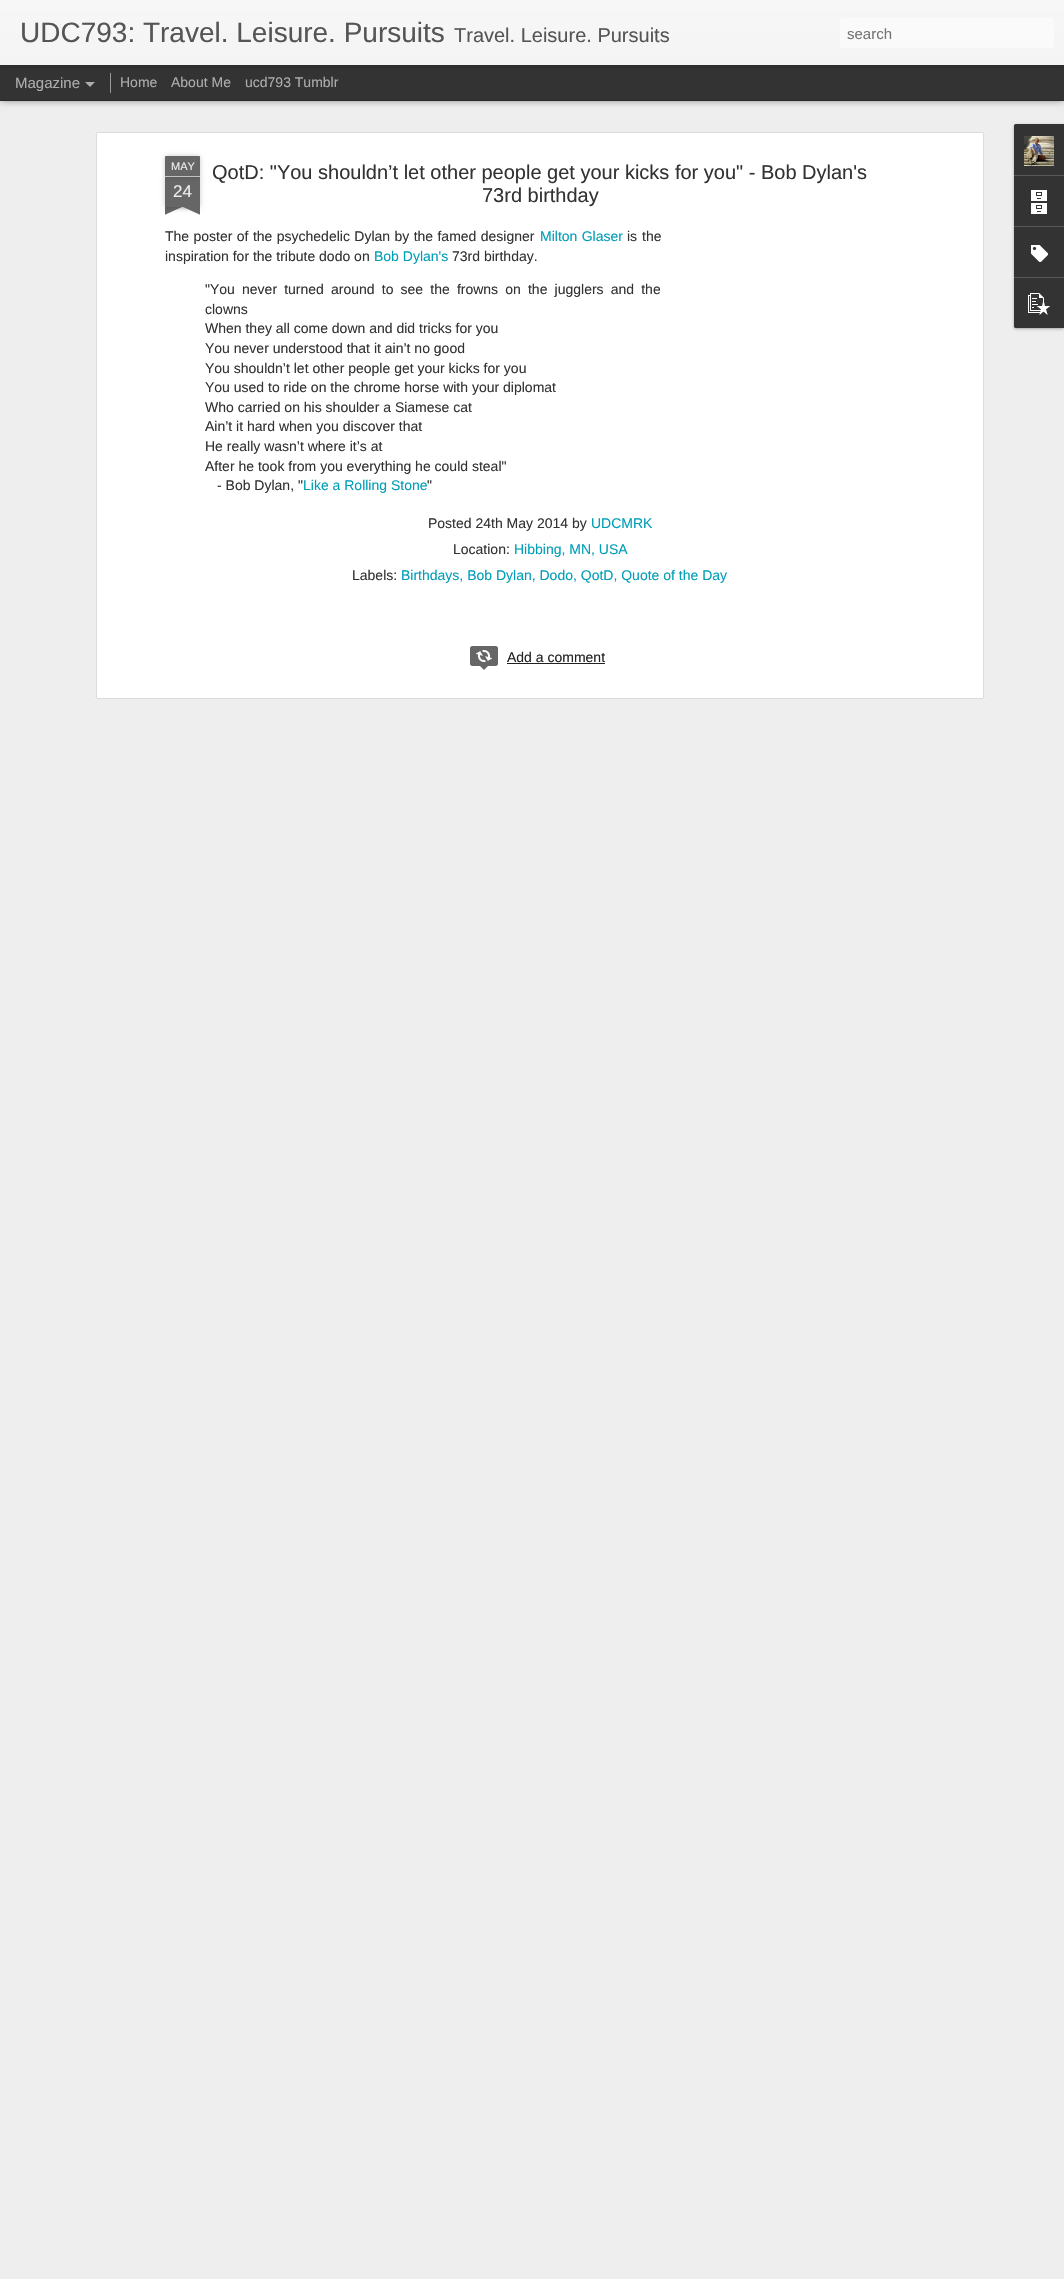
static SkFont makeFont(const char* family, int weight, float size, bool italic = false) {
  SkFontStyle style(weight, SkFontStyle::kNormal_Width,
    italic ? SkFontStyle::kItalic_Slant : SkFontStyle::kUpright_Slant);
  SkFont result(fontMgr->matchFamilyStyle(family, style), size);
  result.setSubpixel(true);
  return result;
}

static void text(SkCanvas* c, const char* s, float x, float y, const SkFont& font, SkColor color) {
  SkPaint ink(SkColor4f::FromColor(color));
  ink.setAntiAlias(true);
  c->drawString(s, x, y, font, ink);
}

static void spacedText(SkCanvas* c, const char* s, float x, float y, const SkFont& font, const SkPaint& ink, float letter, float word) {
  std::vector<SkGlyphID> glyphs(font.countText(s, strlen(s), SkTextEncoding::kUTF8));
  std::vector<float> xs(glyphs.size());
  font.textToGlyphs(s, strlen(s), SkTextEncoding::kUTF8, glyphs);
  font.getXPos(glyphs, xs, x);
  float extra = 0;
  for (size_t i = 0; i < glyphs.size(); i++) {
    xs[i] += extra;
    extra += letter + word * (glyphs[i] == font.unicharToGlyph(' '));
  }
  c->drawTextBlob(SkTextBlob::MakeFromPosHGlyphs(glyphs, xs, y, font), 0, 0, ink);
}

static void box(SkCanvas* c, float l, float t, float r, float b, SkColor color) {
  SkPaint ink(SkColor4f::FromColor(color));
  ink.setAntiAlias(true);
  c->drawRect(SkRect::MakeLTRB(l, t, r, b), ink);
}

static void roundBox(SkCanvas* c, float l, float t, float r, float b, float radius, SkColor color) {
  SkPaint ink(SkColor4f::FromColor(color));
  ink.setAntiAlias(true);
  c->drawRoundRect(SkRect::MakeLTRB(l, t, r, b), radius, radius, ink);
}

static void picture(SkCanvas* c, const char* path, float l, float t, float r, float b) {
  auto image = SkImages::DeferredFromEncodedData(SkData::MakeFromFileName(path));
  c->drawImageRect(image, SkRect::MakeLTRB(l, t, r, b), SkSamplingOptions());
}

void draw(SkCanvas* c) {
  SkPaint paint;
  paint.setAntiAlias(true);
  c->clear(0xff333333);
  box(c, 0, 101, 1064, 2279, 0xffeeeeee);
  paint.setColor(0x80000000);
  paint.setMaskFilter(SkMaskFilter::MakeBlur(kNormal_SkBlurStyle, 4));
  c->drawRect(SkRect::MakeLTRB(0, 65, 1064, 100), paint);
  paint.setMaskFilter(nullptr);
  box(c, 0, 65, 1064, 100, 0xff333333);
  box(c, 110, 73, 111, 93, 0xff999999);
  paint.setColor(0x4d000000);
  paint.setMaskFilter(SkMaskFilter::MakeBlur(kNormal_SkBlurStyle, 2.5f));
  c->drawRect(SkRect::MakeLTRB(0, 0, 1064, 65), paint);
  paint.setMaskFilter(nullptr);
  {
    const SkColor colors[] = {0xfff7f7f7, 0xfff4f4f4};
    const float stops[] = {0, 1};
    const SkPoint ends[] = {{0, 0}, {0, 65}};
    paint.setShader(SkGradientShader::MakeLinear(ends, colors, stops, 2, SkTileMode::kClamp));
    paint.setAlpha(255);
  }
  c->drawRect(SkRect::MakeLTRB(0, 0, 1064, 65), paint);
  SkFont face1 = makeFont("Liberation Sans", 400, 28);
  text(c, "UDC793: Travel. Leisure. Pursuits", 20, 42, face1, 0xff555555);
  SkFont face2 = makeFont("Liberation Sans", 400, 20);
  text(c, "Travel. Leisure. Pursuits", 454, 42, face2, 0xff555555);
  roundBox(c, 840, 18, 1054, 48, 3, 0xfffafafa);
  SkFont face3 = makeFont("Liberation Sans", 400, 15);
  text(c, "search", 847, 39, face3, 0xff757575);
  text(c, "Magazine", 15, 88, face3, 0xffadadad);
  paint.setShader(nullptr);
  paint.setColor(0xffadadad);
  c->drawPath(SkPathBuilder().moveTo(85, 82).lineTo(95, 82).lineTo(90, 87).close().detach(), paint);
  SkFont face4 = makeFont("Liberation Sans", 400, 14);
  text(c, "Home", 120, 87, face4, 0xffadadad);
  text(c, "About Me", 171, 87, face4, 0xffadadad);
  text(c, "ucd793 Tumblr", 245, 87, face4, 0xffadadad);
  box(c, 95, 131, 985, 700, 0xffffffff);
  picture(c, "img_01.png", 95, 131, 985, 700);
  paint.setColor(0x33000000);
  paint.setMaskFilter(SkMaskFilter::MakeBlur(kNormal_SkBlurStyle, 2.5f));
  c->drawRect(SkRect::MakeLTRB(165, 177, 200, 207), paint);
  paint.setMaskFilter(nullptr);
  box(c, 165, 177, 200, 207, 0xff666666);
  paint.setMaskFilter(SkMaskFilter::MakeBlur(kNormal_SkBlurStyle, 2.5f));
  c->drawRoundRect(SkRect::MakeLTRB(165, 156, 200, 177), 1, 1, paint);
  paint.setMaskFilter(nullptr);
  paint.setColor(0xff666666);
  c->drawPath(SkPathBuilder().moveTo(166, 156).lineTo(199, 156).cubicTo(199.5f, 156, 200, 156.5f, 200, 157).lineTo(200, 177).lineTo(165, 177).lineTo(165, 157).cubicTo(165, 156.5f, 165.5f, 156, 166, 156).close().detach(), paint);
  box(c, 165, 176, 200, 177, 0xffc2c2c2);
  SkFont face5 = makeFont("Liberation Sans", 400, 11);
  text(c, "MAY", 171, 170, face5, 0xffeeeeee);
  SkFont face6 = makeFont("Liberation Sans", 400, 17);
  text(c, "24", 173, 197, face6, 0xffeeeeee);
  c->save();
  c->clipRect(SkRect::MakeLTRB(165, 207, 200, 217));
  paint.setColor(0x33000000);
  paint.setMaskFilter(SkMaskFilter::MakeBlur(kNormal_SkBlurStyle, 2.5f));
  c->drawRect(SkRect::MakeLTRB(156, 197, 206, 207), paint);
  paint.setMaskFilter(nullptr);
  c->restore();
  c->save();
  c->clipRect(SkRect::MakeLTRB(165, 207, 200, 217));
  paint.setColor(0xff666666);
  c->drawPath(SkPathBuilder().moveTo(156, 208).lineTo(202, 187).lineTo(206, 196).lineTo(160, 217).close().detach(), paint);
  c->restore();
  c->save();
  c->clipRect(SkRect::MakeLTRB(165, 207, 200, 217));
  paint.setColor(0x33000000);
  paint.setMaskFilter(SkMaskFilter::MakeBlur(kNormal_SkBlurStyle, 2.5f));
  c->drawRect(SkRect::MakeLTRB(159, 197, 209, 207), paint);
  paint.setMaskFilter(nullptr);
  c->restore();
  c->save();
  c->clipRect(SkRect::MakeLTRB(165, 207, 200, 217));
  paint.setColor(0xff666666);
  c->drawPath(SkPathBuilder().moveTo(163, 187).lineTo(209, 208).lineTo(205, 217).lineTo(159, 196).close().detach(), paint);
  c->restore();
  text(c, "QotD: \"You shouldn’t let other people get your kicks for you\" - Bob Dylan's", 212, 179, face2, 0xff333333);
  text(c, "73rd birthday", 482, 202, face2, 0xff333333);
  paint.setColor(0xff333333);
  spacedText(c, "The poster of the psychedelic Dylan by the famed designer", 165, 241, face4, paint, 0, 0.5f);
  paint.setColor(0xff009eb8);
  spacedText(c, "Milton Glaser", 540, 241, face4, paint, 0, 0.5f);
  paint.setColor(0xff333333);
  spacedText(c, "is the", 627, 241, face4, paint, 0, 1);
  text(c, "inspiration for the tribute dodo on", 165, 261, face4, 0xff333333);
  text(c, "Bob Dylan's", 374, 261, face4, 0xff009eb8);
  text(c, "73rd birthday.", 452, 261, face4, 0xff333333);
  spacedText(c, "\"You never turned around to see the frowns on the jugglers and the", 205, 294, face4, paint, 0, 3.25f);
  text(c, "clowns", 205, 314, face4, 0xff333333);
  text(c, "When they all come down and did tricks for you", 205, 333, face4, 0xff333333);
  text(c, "You never understood that it ain’t no good", 205, 353, face4, 0xff333333);
  text(c, "You shouldn’t let other people get your kicks for you", 205, 373, face4, 0xff333333);
  text(c, "You used to ride on the chrome horse with your diplomat", 205, 392, face4, 0xff333333);
  text(c, "Who carried on his shoulder a Siamese cat", 205, 412, face4, 0xff333333);
  text(c, "Ain’t it hard when you discover that", 205, 431, face4, 0xff333333);
  text(c, "He really wasn’t where it’s at", 205, 451, face4, 0xff333333);
  text(c, "After he took from you everything he could steal\"", 205, 471, face4, 0xff333333);
  text(c, "- Bob Dylan, \"", 217, 490, face4, 0xff333333);
  text(c, "Like a Rolling Stone", 303, 490, face4, 0xff009eb8);
  text(c, "\"", 427, 490, face4, 0xff333333);
  text(c, "Posted 24th May 2014 by", 428, 528, face4, 0xff333333);
  text(c, "UDCMRK", 591, 528, face4, 0xff009eb8);
  text(c, "Location:", 453, 554, face4, 0xff333333);
  text(c, "Hibbing, MN, USA", 514, 554, face4, 0xff009eb8);
  text(c, "Labels:", 352, 580, face4, 0xff333333);
  text(c, "Birthdays, Bob Dylan, Dodo, QotD, Quote of the Day", 401, 580, face4, 0xff009eb8);
  roundBox(c, 470, 646, 498, 666, 3, 0xff666666);
  picture(c, "img_02.png", 476, 650, 492, 662);
  paint.setStyle(SkPaint::kStroke_Style);
  paint.setStrokeWidth(1);
  paint.setColor(0xff666666);
  c->drawRoundRect(SkRect::MakeLTRB(470.5f, 646.5f, 497.5f, 665.5f), 2.5f, 2.5f, paint);
  paint.setStyle(SkPaint::kFill_Style);
  c->drawPath(SkPathBuilder().moveTo(479, 665).lineTo(489, 665).lineTo(484, 670).close().detach(), paint);
  text(c, "Add a comment", 507, 662, face4, 0xff222222);
  box(c, 507, 663, 605, 664, 0xff222222);
  paint.setColor(0x4d000000);
  paint.setMaskFilter(SkMaskFilter::MakeBlur(kNormal_SkBlurStyle, 1.5f));
  c->drawRoundRect(SkRect::MakeLTRB(1014, 125, 1064, 329), 2, 2, paint);
  paint.setMaskFilter(nullptr);
  paint.setColor(0xff333333);
  c->drawPath(SkPathBuilder().moveTo(1016, 124).lineTo(1064, 124).lineTo(1064, 328).lineTo(1016, 328).cubicTo(1015, 328, 1014, 327, 1014, 326).lineTo(1014, 126).cubicTo(1014, 125, 1015, 124, 1016, 124).close().detach(), paint);
  c->drawPath(SkPathBuilder().moveTo(1016, 124).lineTo(1064, 124).lineTo(1064, 175).lineTo(1014, 175).lineTo(1014, 126).cubicTo(1014, 125, 1015, 124, 1016, 124).close().detach(), paint);
  picture(c, "img_03.png", 1024, 136, 1054, 166);
  box(c, 1014, 175, 1064, 176, 0xff585858);
  picture(c, "img_04.png", 1031, 190, 1047, 214);
  box(c, 1014, 226, 1064, 227, 0xff585858);
  picture(c, "img_05.png", 1031, 245, 1048, 262);
  c->drawPath(SkPathBuilder().moveTo(1014, 277).lineTo(1064, 277).lineTo(1064, 328).lineTo(1016, 328).cubicTo(1015, 328, 1014, 327, 1014, 326).close().detach(), paint);
  box(c, 1014, 277, 1064, 278, 0xff585858);
  picture(c, "img_06.png", 1028, 293, 1050, 315);
}
